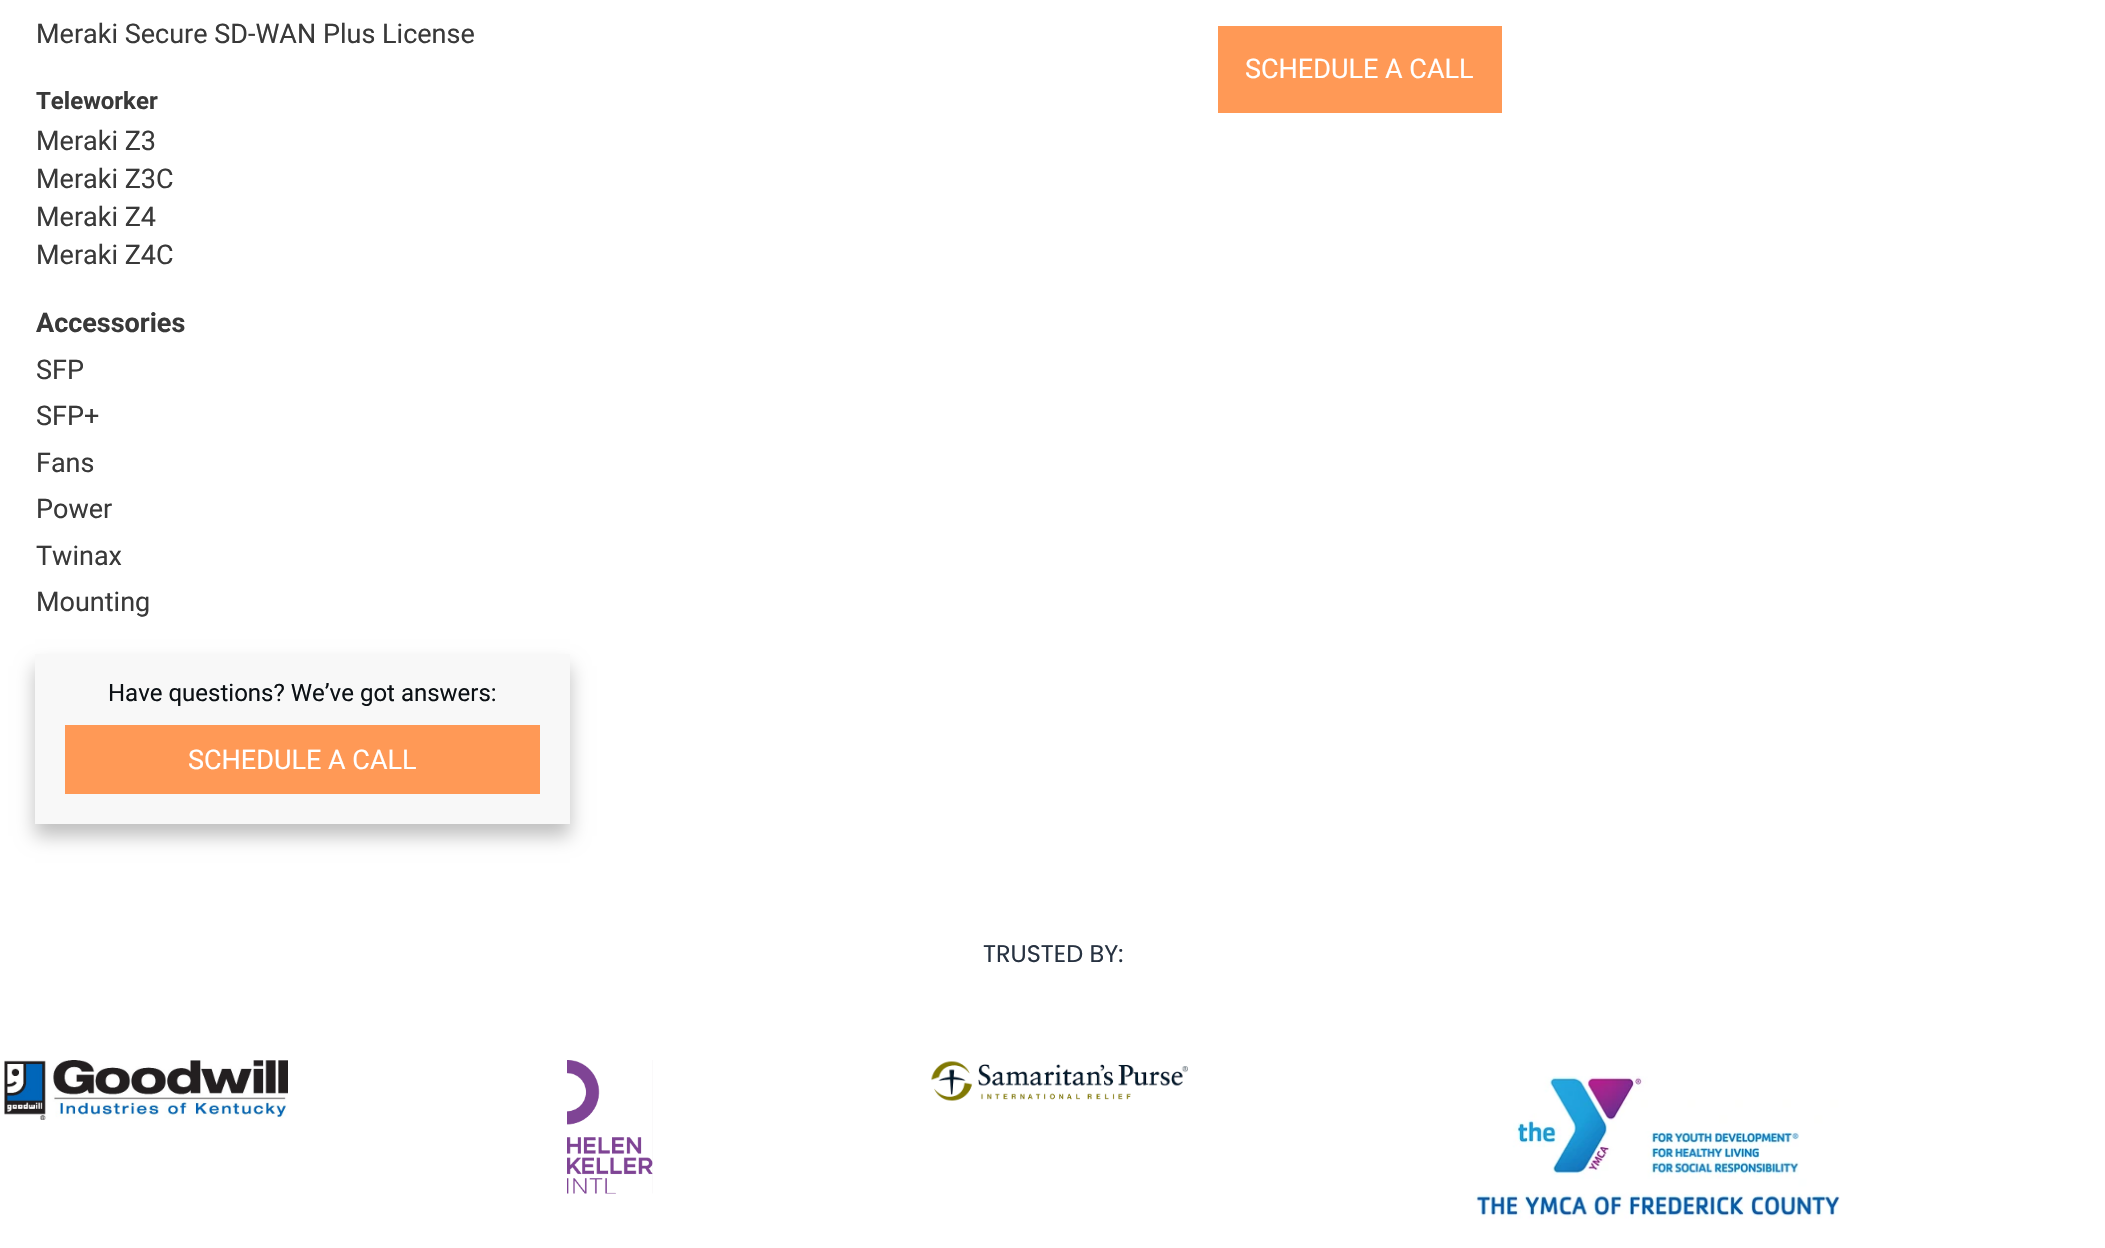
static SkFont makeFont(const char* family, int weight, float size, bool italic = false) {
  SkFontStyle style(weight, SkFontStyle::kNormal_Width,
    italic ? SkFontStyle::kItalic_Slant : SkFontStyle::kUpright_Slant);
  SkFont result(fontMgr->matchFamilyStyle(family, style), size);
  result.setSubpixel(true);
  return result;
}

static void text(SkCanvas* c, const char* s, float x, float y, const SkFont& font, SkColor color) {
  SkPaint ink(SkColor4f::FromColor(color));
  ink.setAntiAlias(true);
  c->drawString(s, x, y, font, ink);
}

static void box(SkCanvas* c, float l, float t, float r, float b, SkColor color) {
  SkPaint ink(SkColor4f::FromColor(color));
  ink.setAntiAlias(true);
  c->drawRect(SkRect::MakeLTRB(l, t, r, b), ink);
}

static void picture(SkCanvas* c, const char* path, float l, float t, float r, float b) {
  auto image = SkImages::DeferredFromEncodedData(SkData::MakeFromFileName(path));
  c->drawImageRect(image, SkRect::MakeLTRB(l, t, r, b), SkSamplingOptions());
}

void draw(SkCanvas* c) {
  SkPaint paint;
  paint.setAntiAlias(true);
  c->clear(0xffffffff);
  SkFont face1 = makeFont("Roboto", 400, 27);
  text(c, "Meraki Secure SD-WAN Plus License", 36, 43, face1, 0xff393939);
  SkFont face2 = makeFont("Roboto", 700, 24);
  text(c, "Teleworker", 36, 109, face2, 0xff393939);
  text(c, "Meraki Z3", 36, 150, face1, 0xff393939);
  text(c, "Meraki Z3C", 36, 188, face1, 0xff393939);
  text(c, "Meraki Z4", 36, 226, face1, 0xff393939);
  text(c, "Meraki Z4C", 36, 264, face1, 0xff393939);
  SkFont face3 = makeFont("Roboto", 700, 27);
  text(c, "Accessories", 36, 332, face3, 0xff393939);
  text(c, "SFP", 36, 379, face1, 0xff393939);
  text(c, "SFP+", 36, 425, face1, 0xff393939);
  text(c, "Fans", 36, 472, face1, 0xff393939);
  text(c, "Power", 36, 518, face1, 0xff393939);
  text(c, "Twinax", 36, 565, face1, 0xff393939);
  text(c, "Mounting", 36, 611, face1, 0xff393939);
  c->save();
  c->clipPath(SkPathBuilder(SkPathFillType::kEvenOdd).moveTo(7, 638).lineTo(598, 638).lineTo(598, 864).lineTo(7, 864).close().moveTo(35, 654).lineTo(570, 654).lineTo(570, 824).lineTo(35, 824).close().detach(), true);
  paint.setColor(0x40000000);
  paint.setMaskFilter(SkMaskFilter::MakeBlur(kNormal_SkBlurStyle, 9));
  c->drawRect(SkRect::MakeLTRB(35, 666, 570, 836), paint);
  paint.setMaskFilter(nullptr);
  c->restore();
  box(c, 35, 654, 570, 824, 0x80f2f2f2);
  SkFont face4 = makeFont("Roboto", 400, 24);
  text(c, "Have questions? We’ve got answers:", 108, 701, face4, 0xff0c1115);
  box(c, 65, 725, 540, 794, 0xffff9956);
  text(c, "SCHEDULE A CALL", 188, 769, face1, 0xffffffff);
  box(c, 1218, 26, 1502, 113, 0xffff9956);
  text(c, "SCHEDULE A CALL", 1245, 78, face1, 0xffffffff);
  SkFont face5 = makeFont("Poppins", 400, 24);
  text(c, "TRUSTED BY:", 983, 962, face5, 0xff273241);
  picture(c, "img_01.png", 4, 1060, 288, 1120);
  picture(c, "img_02.png", 567, 1060, 653, 1194);
  picture(c, "img_03.png", 931, 1061, 1188, 1101);
  picture(c, "img_04.png", 1473, 1076, 1840, 1219);
}
